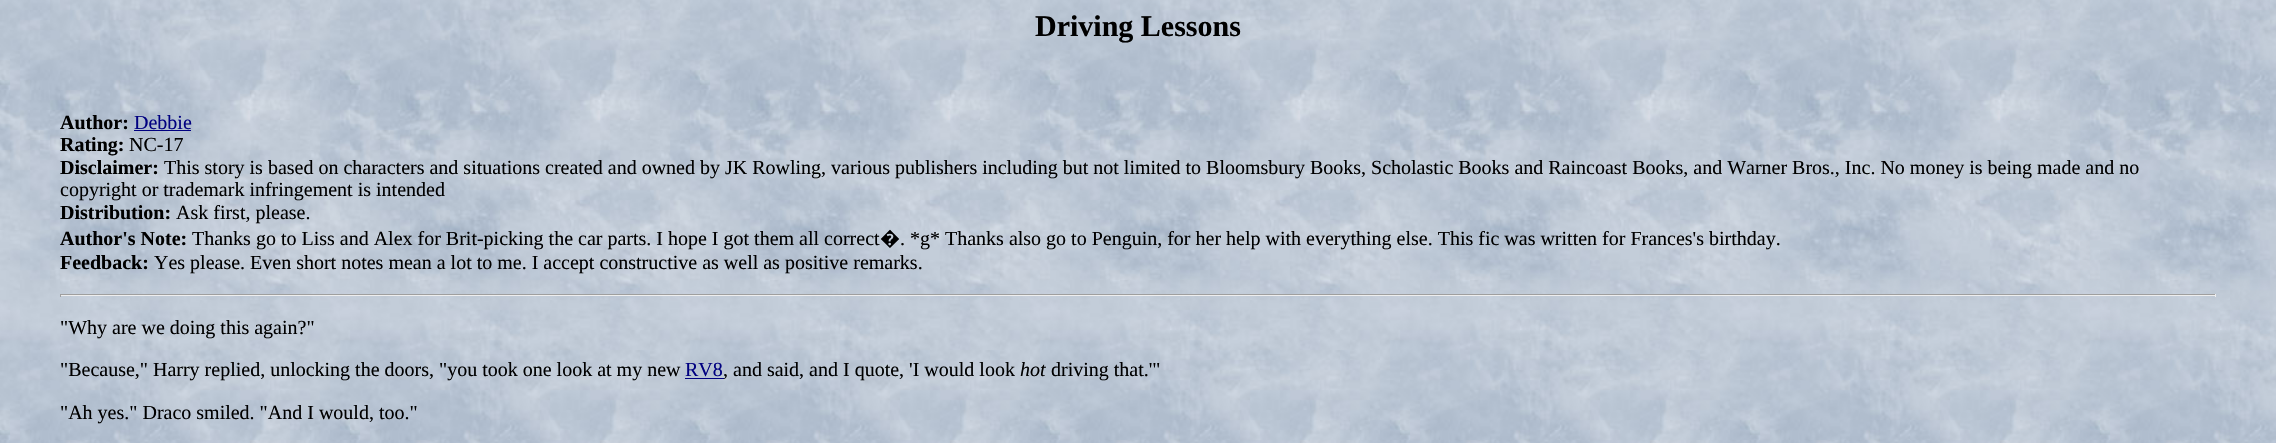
static SkFont makeFont(const char* family, int weight, float size, bool italic = false) {
  SkFontStyle style(weight, SkFontStyle::kNormal_Width,
    italic ? SkFontStyle::kItalic_Slant : SkFontStyle::kUpright_Slant);
  SkFont result(fontMgr->matchFamilyStyle(family, style), size);
  result.setSubpixel(true);
  return result;
}

static void text(SkCanvas* c, const char* s, float x, float y, const SkFont& font, SkColor color) {
  SkPaint ink(SkColor4f::FromColor(color));
  ink.setAntiAlias(true);
  c->drawString(s, x, y, font, ink);
}

static void box(SkCanvas* c, float l, float t, float r, float b, SkColor color) {
  SkPaint ink(SkColor4f::FromColor(color));
  ink.setAntiAlias(true);
  c->drawRect(SkRect::MakeLTRB(l, t, r, b), ink);
}

static void picture(SkCanvas* c, const char* path, float l, float t, float r, float b) {
  auto image = SkImages::DeferredFromEncodedData(SkData::MakeFromFileName(path));
  c->drawImageRect(image, SkRect::MakeLTRB(l, t, r, b), SkSamplingOptions());
}

void draw(SkCanvas* c) {
  SkPaint paint;
  paint.setAntiAlias(true);
  c->clear(0xffffffff);
  picture(c, "img_01.png", 0, 0, 2276, 443);
  SkFont face1 = makeFont("Liberation Serif", 700, 30);
  text(c, "Driving Lessons", 1035, 36, face1, 0xff000000);
  SkFont face2 = makeFont("Liberation Serif", 700, 20);
  text(c, "Author:", 60, 129, face2, 0xff000000);
  SkFont face3 = makeFont("Liberation Serif", 400, 20);
  text(c, "Debbie", 134, 129, face3, 0xff000080);
  box(c, 134, 130, 191, 131, 0xff000080);
  text(c, "Rating:", 60, 151, face2, 0xff000000);
  text(c, "NC-17", 129, 151, face3, 0xff000000);
  text(c, "Disclaimer:", 60, 174, face2, 0xff000000);
  text(c, "This story is based on characters and situations created and owned by JK Rowling, various publishers including but not limited to Bloomsbury Books, Scholastic Books and Raincoast Books, and Warner Bros., Inc. No money is being made and no", 164, 174, face3, 0xff000000);
  text(c, "copyright or trademark infringement is intended", 60, 196, face3, 0xff000000);
  text(c, "Distribution:", 60, 219, face2, 0xff000000);
  text(c, "Ask first, please.", 176, 219, face3, 0xff000000);
  text(c, "Author's Note:", 60, 245, face2, 0xff000000);
  text(c, "Thanks go to Liss and Alex for Brit-picking the car parts. I hope I got them all correct", 192, 245, face3, 0xff000000);
  SkFont face4 = makeFont("Noto Sans", 400, 20);
  text(c, "�", 880, 245, face4, 0xff000000);
  text(c, ". *g* Thanks also go to Penguin, for her help with everything else. This fic was written for Frances's birthday.", 900, 245, face3, 0xff000000);
  text(c, "Feedback:", 60, 269, face2, 0xff000000);
  text(c, "Yes please. Even short notes mean a lot to me. I accept constructive as well as positive remarks.", 154, 269, face3, 0xff000000);
  box(c, 60, 294, 2216, 295, 0xff9f9f9f);
  box(c, 2215, 294, 2216, 297, 0xffeeeeee);
  box(c, 60, 295, 2216, 296, 0xffeeeeee);
  box(c, 60, 294, 61, 297, 0xff9f9f9f);
  text(c, "\"Why are we doing this again?\"", 60, 334, face3, 0xff000000);
  text(c, "\"Because,\" Harry replied, unlocking the doors, \"you took one look at my new", 60, 376, face3, 0xff000000);
  text(c, "RV8", 685, 376, face3, 0xff000080);
  box(c, 685, 378, 724, 379, 0xff000080);
  text(c, ", and said, and I quote, 'I would look", 723, 376, face3, 0xff000000);
  SkFont face5 = makeFont("Liberation Serif", 400, 20, true);
  text(c, "hot", 1020, 376, face5, 0xff000000);
  text(c, "driving that.'\"", 1051, 376, face3, 0xff000000);
  text(c, "\"Ah yes.\" Draco smiled. \"And I would, too.\"", 60, 419, face3, 0xff000000);
}
